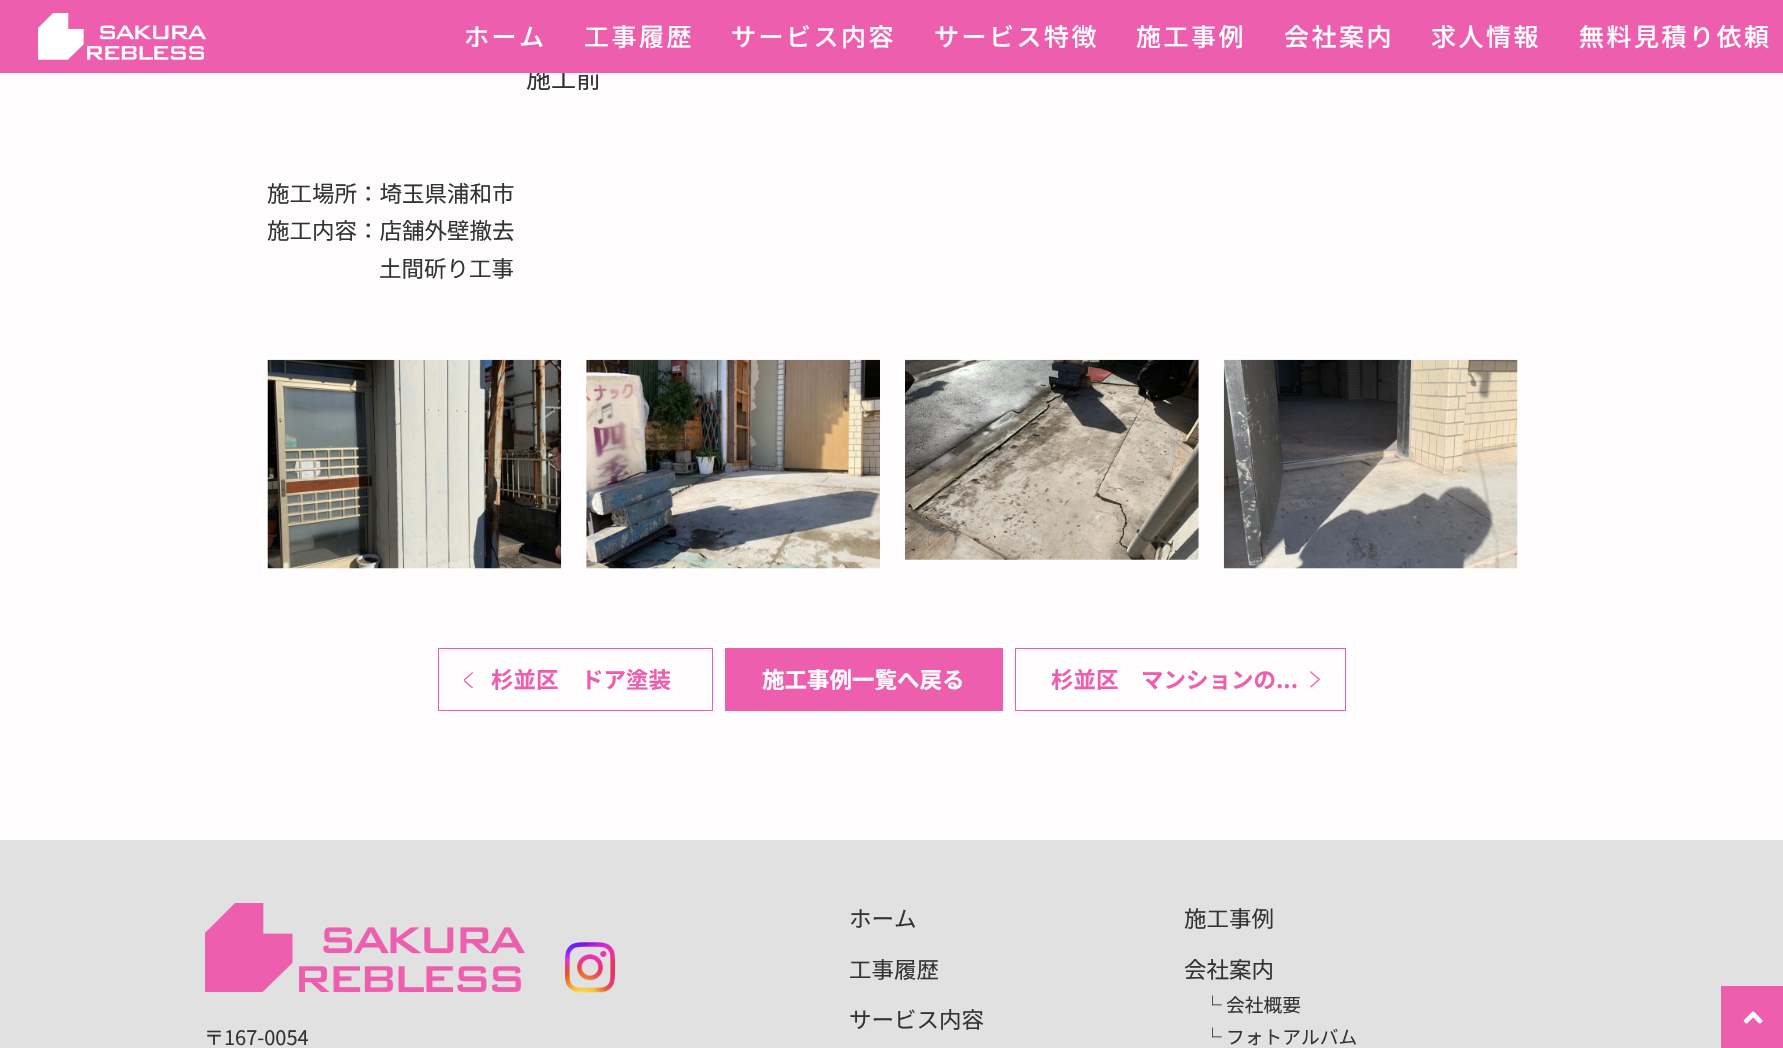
static SkFont makeFont(const char* family, int weight, float size, bool italic = false) {
  SkFontStyle style(weight, SkFontStyle::kNormal_Width,
    italic ? SkFontStyle::kItalic_Slant : SkFontStyle::kUpright_Slant);
  SkFont result(fontMgr->matchFamilyStyle(family, style), size);
  result.setSubpixel(true);
  return result;
}

static void text(SkCanvas* c, const char* s, float x, float y, const SkFont& font, SkColor color) {
  SkPaint ink(SkColor4f::FromColor(color));
  ink.setAntiAlias(true);
  c->drawString(s, x, y, font, ink);
}

static void spacedText(SkCanvas* c, const char* s, float x, float y, const SkFont& font, const SkPaint& ink, float letter, float word) {
  std::vector<SkGlyphID> glyphs(font.countText(s, strlen(s), SkTextEncoding::kUTF8));
  std::vector<float> xs(glyphs.size());
  font.textToGlyphs(s, strlen(s), SkTextEncoding::kUTF8, glyphs);
  font.getXPos(glyphs, xs, x);
  float extra = 0;
  for (size_t i = 0; i < glyphs.size(); i++) {
    xs[i] += extra;
    extra += letter + word * (glyphs[i] == font.unicharToGlyph(' '));
  }
  c->drawTextBlob(SkTextBlob::MakeFromPosHGlyphs(glyphs, xs, y, font), 0, 0, ink);
}

static void box(SkCanvas* c, float l, float t, float r, float b, SkColor color) {
  SkPaint ink(SkColor4f::FromColor(color));
  ink.setAntiAlias(true);
  c->drawRect(SkRect::MakeLTRB(l, t, r, b), ink);
}

static void picture(SkCanvas* c, const char* path, float l, float t, float r, float b) {
  auto image = SkImages::DeferredFromEncodedData(SkData::MakeFromFileName(path));
  c->drawImageRect(image, SkRect::MakeLTRB(l, t, r, b), SkSamplingOptions());
}

void draw(SkCanvas* c) {
  SkPaint paint;
  paint.setAntiAlias(true);
  c->clear(0xfffffdfe);
  SkFont face1 = makeFont("Noto Sans JP", 400, 25);
  text(c, "施工前", 526, 88, face1, 0xff333333);
  box(c, 0, 0, 1783, 73, 0xffee5eae);
  picture(c, "img_01.png", 38, 13, 206, 60);
  SkFont face2 = makeFont("Noto Sans JP", 500, 25);
  paint.setColor(0xffffffff);
  spacedText(c, "ホーム", 464, 46, face2, paint, 2.5f, 0);
  spacedText(c, "工事履歴", 584, 46, face2, paint, 2.5f, 0);
  spacedText(c, "サービス内容", 731, 46, face2, paint, 2.5f, 0);
  spacedText(c, "サービス特徴", 934, 46, face2, paint, 2.5f, 0);
  spacedText(c, "施工事例", 1136, 46, face2, paint, 2.5f, 0);
  spacedText(c, "会社案内", 1284, 46, face2, paint, 2.5f, 0);
  spacedText(c, "求人情報", 1431, 46, face2, paint, 2.5f, 0);
  spacedText(c, "無料見積り依頼", 1579, 46, face2, paint, 2.5f, 0);
  SkFont face3 = makeFont("Noto Sans JP", 400, 22.5f);
  text(c, "施工場所：埼玉県浦和市", 267, 202, face3, 0xff333333);
  text(c, "施工内容：店舗外壁撤去", 267, 239, face3, 0xff333333);
  text(c, "土間斫り工事", 379, 277, face3, 0xff333333);
  picture(c, "img_02.png", 267, 359, 562, 569);
  picture(c, "img_03.png", 586, 359, 880, 569);
  picture(c, "img_04.png", 905, 359, 1199, 560);
  picture(c, "img_05.png", 1223, 359, 1518, 569);
  paint.setStyle(SkPaint::kStroke_Style);
  paint.setStrokeWidth(1);
  paint.setColor(0xffee5eae);
  c->drawRect(SkRect::MakeLTRB(438.5f, 648.5f, 712.5f, 710.5f), paint);
  picture(c, "img_06.png", 464, 672, 473, 688);
  SkFont face4 = makeFont("Noto Sans JP", 700, 22.5f);
  text(c, "杉並区　ドア塗装", 491, 688, face4, 0xffee5eae);
  box(c, 725, 648, 1003, 711, 0xffee5eae);
  text(c, "施工事例一覧へ戻る", 762, 688, face4, 0xffffffff);
  c->drawRect(SkRect::MakeLTRB(1015.5f, 648.5f, 1345.5f, 710.5f), paint);
  text(c, "杉並区　マンションの...", 1051, 688, face4, 0xffee5eae);
  picture(c, "img_07.png", 1310, 671, 1320, 688);
  box(c, 0, 840, 1783, 1048, 0xffe1e1e1);
  picture(c, "img_08.png", 205, 903, 525, 992);
  picture(c, "img_09.png", 565, 942, 615, 993);
  SkFont face5 = makeFont("Noto Sans JP", 400, 20);
  text(c, "〒167-0054", 204, 1045, face5, 0xff333333);
  text(c, "ホーム", 849, 927, face3, 0xff333333);
  text(c, "工事履歴", 849, 978, face3, 0xff333333);
  text(c, "サービス内容", 849, 1028, face3, 0xff333333);
  text(c, "施工事例", 1184, 927, face3, 0xff333333);
  text(c, "会社案内", 1184, 978, face3, 0xff333333);
  SkFont face6 = makeFont("Noto Sans JP", 400, 18.75f);
  text(c, "└", 1203, 1012, face6, 0xff333333);
  text(c, "会社概要", 1226, 1012, face6, 0xff333333);
  text(c, "└", 1203, 1044, face6, 0xff333333);
  text(c, "フォトアルバム", 1226, 1044, face6, 0xff333333);
  box(c, 1721, 986, 1783, 1048, 0xffee5eae);
  picture(c, "img_10.png", 1743, 1011, 1763, 1024);
}
